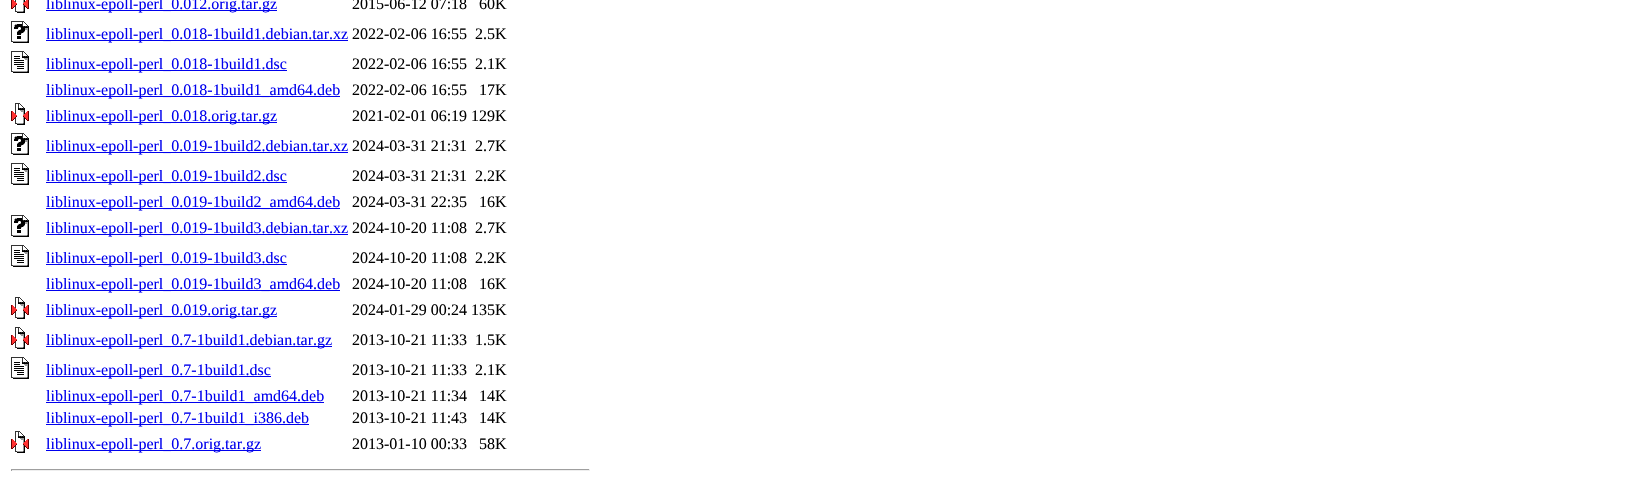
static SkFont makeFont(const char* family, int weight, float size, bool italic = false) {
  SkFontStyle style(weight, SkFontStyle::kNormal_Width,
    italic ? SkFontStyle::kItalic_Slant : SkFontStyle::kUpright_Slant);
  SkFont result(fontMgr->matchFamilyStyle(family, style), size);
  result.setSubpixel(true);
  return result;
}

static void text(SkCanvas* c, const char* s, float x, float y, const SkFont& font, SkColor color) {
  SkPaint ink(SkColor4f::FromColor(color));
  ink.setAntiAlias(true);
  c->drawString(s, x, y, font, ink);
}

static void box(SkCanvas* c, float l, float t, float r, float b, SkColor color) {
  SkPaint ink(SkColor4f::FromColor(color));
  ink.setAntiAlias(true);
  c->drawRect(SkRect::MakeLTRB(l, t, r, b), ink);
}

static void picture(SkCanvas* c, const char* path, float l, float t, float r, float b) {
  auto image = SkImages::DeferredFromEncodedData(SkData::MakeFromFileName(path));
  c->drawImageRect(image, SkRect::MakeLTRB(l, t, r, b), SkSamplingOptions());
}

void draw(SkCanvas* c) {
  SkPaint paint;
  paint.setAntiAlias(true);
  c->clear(0xffffffff);
  picture(c, "img_01.png", 11, 0, 29, 13);
  box(c, 46, 10, 277, 11, 0xff0000ee);
  SkFont face1 = makeFont("Liberation Serif", 400, 16);
  text(c, "liblinux-epoll-perl_0.012.orig.tar.gz", 46, 9, face1, 0xff0000ee);
  text(c, "2015-06-12 07:18", 352, 9, face1, 0xff000000);
  text(c, "60K", 479, 9, face1, 0xff000000);
  picture(c, "img_02.png", 11, 21, 29, 43);
  box(c, 46, 40, 348, 41, 0xff0000ee);
  text(c, "liblinux-epoll-perl_0.018-1build1.debian.tar.xz", 46, 39, face1, 0xff0000ee);
  text(c, "2022-02-06 16:55", 352, 39, face1, 0xff000000);
  text(c, "2.5K", 475, 39, face1, 0xff000000);
  picture(c, "img_03.png", 11, 51, 29, 73);
  box(c, 46, 70, 287, 71, 0xff0000ee);
  text(c, "liblinux-epoll-perl_0.018-1build1.dsc", 46, 69, face1, 0xff0000ee);
  text(c, "2022-02-06 16:55", 352, 69, face1, 0xff000000);
  text(c, "2.1K", 475, 69, face1, 0xff000000);
  box(c, 46, 96, 340, 97, 0xff0000ee);
  text(c, "liblinux-epoll-perl_0.018-1build1_amd64.deb", 46, 95, face1, 0xff0000ee);
  text(c, "2022-02-06 16:55", 352, 95, face1, 0xff000000);
  text(c, "17K", 479, 95, face1, 0xff000000);
  picture(c, "img_04.png", 11, 103, 29, 125);
  box(c, 46, 122, 277, 123, 0xff0000ee);
  text(c, "liblinux-epoll-perl_0.018.orig.tar.gz", 46, 121, face1, 0xff0000ee);
  text(c, "2021-02-01 06:19 129K", 352, 121, face1, 0xff000000);
  picture(c, "img_02.png", 11, 133, 29, 155);
  box(c, 46, 152, 348, 153, 0xff0000ee);
  text(c, "liblinux-epoll-perl_0.019-1build2.debian.tar.xz", 46, 151, face1, 0xff0000ee);
  text(c, "2024-03-31 21:31", 352, 151, face1, 0xff000000);
  text(c, "2.7K", 475, 151, face1, 0xff000000);
  picture(c, "img_03.png", 11, 163, 29, 185);
  box(c, 46, 182, 287, 183, 0xff0000ee);
  text(c, "liblinux-epoll-perl_0.019-1build2.dsc", 46, 181, face1, 0xff0000ee);
  text(c, "2024-03-31 21:31", 352, 181, face1, 0xff000000);
  text(c, "2.2K", 475, 181, face1, 0xff000000);
  box(c, 46, 208, 340, 209, 0xff0000ee);
  text(c, "liblinux-epoll-perl_0.019-1build2_amd64.deb", 46, 207, face1, 0xff0000ee);
  text(c, "2024-03-31 22:35", 352, 207, face1, 0xff000000);
  text(c, "16K", 479, 207, face1, 0xff000000);
  picture(c, "img_02.png", 11, 215, 29, 237);
  box(c, 46, 234, 348, 235, 0xff0000ee);
  text(c, "liblinux-epoll-perl_0.019-1build3.debian.tar.xz", 46, 233, face1, 0xff0000ee);
  text(c, "2024-10-20 11:08", 352, 233, face1, 0xff000000);
  text(c, "2.7K", 475, 233, face1, 0xff000000);
  picture(c, "img_03.png", 11, 245, 29, 267);
  box(c, 46, 264, 287, 265, 0xff0000ee);
  text(c, "liblinux-epoll-perl_0.019-1build3.dsc", 46, 263, face1, 0xff0000ee);
  text(c, "2024-10-20 11:08", 352, 263, face1, 0xff000000);
  text(c, "2.2K", 475, 263, face1, 0xff000000);
  box(c, 46, 290, 340, 291, 0xff0000ee);
  text(c, "liblinux-epoll-perl_0.019-1build3_amd64.deb", 46, 289, face1, 0xff0000ee);
  text(c, "2024-10-20 11:08", 352, 289, face1, 0xff000000);
  text(c, "16K", 479, 289, face1, 0xff000000);
  picture(c, "img_04.png", 11, 297, 29, 319);
  box(c, 46, 316, 277, 317, 0xff0000ee);
  text(c, "liblinux-epoll-perl_0.019.orig.tar.gz", 46, 315, face1, 0xff0000ee);
  text(c, "2024-01-29 00:24 135K", 352, 315, face1, 0xff000000);
  picture(c, "img_04.png", 11, 327, 29, 349);
  box(c, 46, 346, 332, 347, 0xff0000ee);
  text(c, "liblinux-epoll-perl_0.7-1build1.debian.tar.gz", 46, 345, face1, 0xff0000ee);
  text(c, "2013-10-21 11:33", 352, 345, face1, 0xff000000);
  text(c, "1.5K", 475, 345, face1, 0xff000000);
  picture(c, "img_03.png", 11, 357, 29, 379);
  box(c, 46, 376, 271, 377, 0xff0000ee);
  text(c, "liblinux-epoll-perl_0.7-1build1.dsc", 46, 375, face1, 0xff0000ee);
  text(c, "2013-10-21 11:33", 352, 375, face1, 0xff000000);
  text(c, "2.1K", 475, 375, face1, 0xff000000);
  box(c, 46, 402, 324, 403, 0xff0000ee);
  text(c, "liblinux-epoll-perl_0.7-1build1_amd64.deb", 46, 401, face1, 0xff0000ee);
  text(c, "2013-10-21 11:34", 352, 401, face1, 0xff000000);
  text(c, "14K", 479, 401, face1, 0xff000000);
  box(c, 46, 424, 309, 425, 0xff0000ee);
  text(c, "liblinux-epoll-perl_0.7-1build1_i386.deb", 46, 423, face1, 0xff0000ee);
  text(c, "2013-10-21 11:43", 352, 423, face1, 0xff000000);
  text(c, "14K", 479, 423, face1, 0xff000000);
  picture(c, "img_04.png", 11, 431, 29, 453);
  box(c, 46, 450, 261, 451, 0xff0000ee);
  text(c, "liblinux-epoll-perl_0.7.orig.tar.gz", 46, 449, face1, 0xff0000ee);
  text(c, "2013-01-10 00:33", 352, 449, face1, 0xff000000);
  text(c, "58K", 479, 449, face1, 0xff000000);
  box(c, 11, 469, 590, 470, 0xff9f9f9f);
  box(c, 589, 469, 590, 471, 0xffeeeeee);
  box(c, 11, 470, 590, 471, 0xffeeeeee);
  box(c, 11, 469, 12, 471, 0xff9f9f9f);
}
